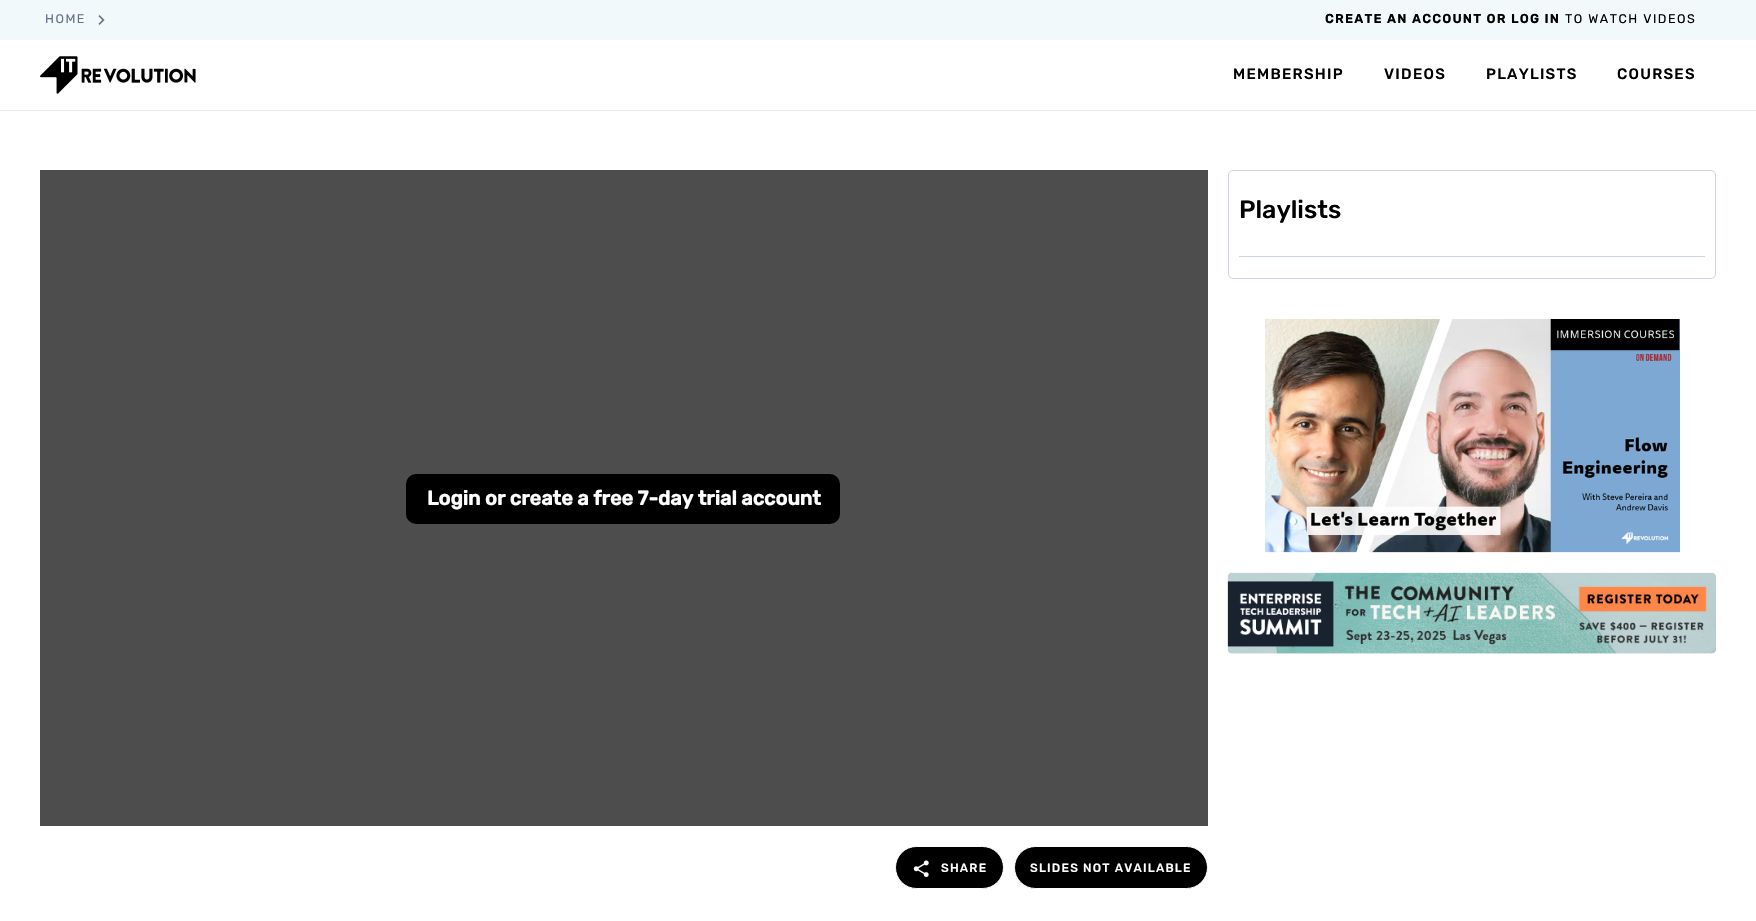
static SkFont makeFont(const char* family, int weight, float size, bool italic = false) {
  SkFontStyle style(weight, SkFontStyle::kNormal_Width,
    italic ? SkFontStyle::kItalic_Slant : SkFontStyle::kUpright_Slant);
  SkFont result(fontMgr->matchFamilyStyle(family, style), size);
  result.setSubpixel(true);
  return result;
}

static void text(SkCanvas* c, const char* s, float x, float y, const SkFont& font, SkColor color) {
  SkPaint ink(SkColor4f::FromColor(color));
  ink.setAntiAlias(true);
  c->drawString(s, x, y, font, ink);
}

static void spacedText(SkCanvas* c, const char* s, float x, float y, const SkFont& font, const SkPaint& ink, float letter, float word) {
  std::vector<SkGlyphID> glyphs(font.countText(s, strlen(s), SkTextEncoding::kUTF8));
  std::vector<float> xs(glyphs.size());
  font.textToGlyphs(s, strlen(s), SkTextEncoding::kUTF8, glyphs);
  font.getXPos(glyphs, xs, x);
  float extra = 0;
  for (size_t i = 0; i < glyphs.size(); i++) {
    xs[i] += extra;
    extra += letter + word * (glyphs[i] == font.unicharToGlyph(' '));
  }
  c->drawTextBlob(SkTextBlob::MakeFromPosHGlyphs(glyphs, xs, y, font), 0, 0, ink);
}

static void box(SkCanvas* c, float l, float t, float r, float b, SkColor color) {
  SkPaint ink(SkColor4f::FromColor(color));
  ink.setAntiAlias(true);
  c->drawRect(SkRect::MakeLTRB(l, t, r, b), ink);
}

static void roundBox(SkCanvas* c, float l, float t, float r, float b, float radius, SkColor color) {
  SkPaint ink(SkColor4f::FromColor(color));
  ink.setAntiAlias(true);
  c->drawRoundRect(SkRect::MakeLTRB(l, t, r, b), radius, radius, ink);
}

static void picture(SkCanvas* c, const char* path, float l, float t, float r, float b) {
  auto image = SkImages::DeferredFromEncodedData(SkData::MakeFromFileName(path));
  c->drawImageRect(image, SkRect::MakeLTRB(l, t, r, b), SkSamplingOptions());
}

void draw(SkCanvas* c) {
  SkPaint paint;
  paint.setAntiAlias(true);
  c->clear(0xffffffff);
  box(c, 0, 0, 1756, 40, 0xfff2f9fb);
  SkFont face1 = makeFont("Rubik", 400, 12.5f);
  paint.setColor(0xff64748b);
  spacedText(c, "HOME", 45, 23, face1, paint, 1.5f, 0);
  picture(c, "img_01.png", 98, 15, 105, 25);
  SkFont face2 = makeFont("Rubik", 700, 12.5f);
  paint.setColor(0xff000000);
  spacedText(c, "CREATE AN ACCOUNT OR LOG IN", 1325, 23, face2, paint, 1.5f, 0);
  spacedText(c, "TO WATCH VIDEOS", 1565, 23, face1, paint, 1.5f, 0);
  box(c, 0, 110, 1756, 111, 0xffebebeb);
  picture(c, "img_02.png", 40, 56, 196, 94);
  SkFont face3 = makeFont("Rubik", 500, 15);
  spacedText(c, "MEMBERSHIP", 1233, 79, face3, paint, 1.25f, 0);
  spacedText(c, "VIDEOS", 1384, 79, face3, paint, 1.25f, 0);
  spacedText(c, "PLAYLISTS", 1486, 79, face3, paint, 1.25f, 0);
  spacedText(c, "COURSES", 1617, 79, face3, paint, 1.25f, 0);
  paint.setStyle(SkPaint::kStroke_Style);
  paint.setStrokeWidth(1);
  paint.setColor(0xffcbd5e1);
  c->drawRoundRect(SkRect::MakeLTRB(1228.5f, 170.5f, 1715.5f, 278.5f), 4.5f, 4.5f, paint);
  SkFont face4 = makeFont("Rubik", 500, 25);
  text(c, "Playlists", 1239, 218, face4, 0xff000000);
  box(c, 1239, 256, 1705, 257, 0xffcbd5e1);
  picture(c, "img_03.png", 1265, 319, 1680, 553);
  picture(c, "img_04.png", 1227, 572, 1716, 654);
  box(c, 40, 170, 1208, 826, 0xff4d4d4d);
  roundBox(c, 406, 474, 840, 524, 10, 0xff000000);
  SkFont face5 = makeFont("Rubik", 700, 20);
  text(c, "Login or create a free 7-day trial account", 427, 505, face5, 0xffffffff);
  paint.setStyle(SkPaint::kFill_Style);
  paint.setColor(0xff000000);
  c->drawRoundRect(SkRect::MakeLTRB(895.5f, 846.5f, 1003.5f, 888.5f), 21, 21, paint);
  paint.setStyle(SkPaint::kStroke_Style);
  paint.setColor(0xffffffff);
  c->drawRoundRect(SkRect::MakeLTRB(895.5f, 846.5f, 1003.5f, 888.5f), 21, 21, paint);
  picture(c, "img_05.png", 913, 860, 929, 877);
  SkFont face6 = makeFont("Rubik", 500, 12);
  paint.setStyle(SkPaint::kFill_Style);
  spacedText(c, "SHARE", 941, 872, face6, paint, 1.2f, 0);
  paint.setColor(0xff000000);
  c->drawRoundRect(SkRect::MakeLTRB(1014.5f, 846.5f, 1207.5f, 888.5f), 21, 21, paint);
  paint.setStyle(SkPaint::kStroke_Style);
  paint.setColor(0xffffffff);
  c->drawRoundRect(SkRect::MakeLTRB(1014.5f, 846.5f, 1207.5f, 888.5f), 21, 21, paint);
  paint.setStyle(SkPaint::kFill_Style);
  spacedText(c, "SLIDES NOT AVAILABLE", 1030, 872, face6, paint, 1.2f, 0);
}
